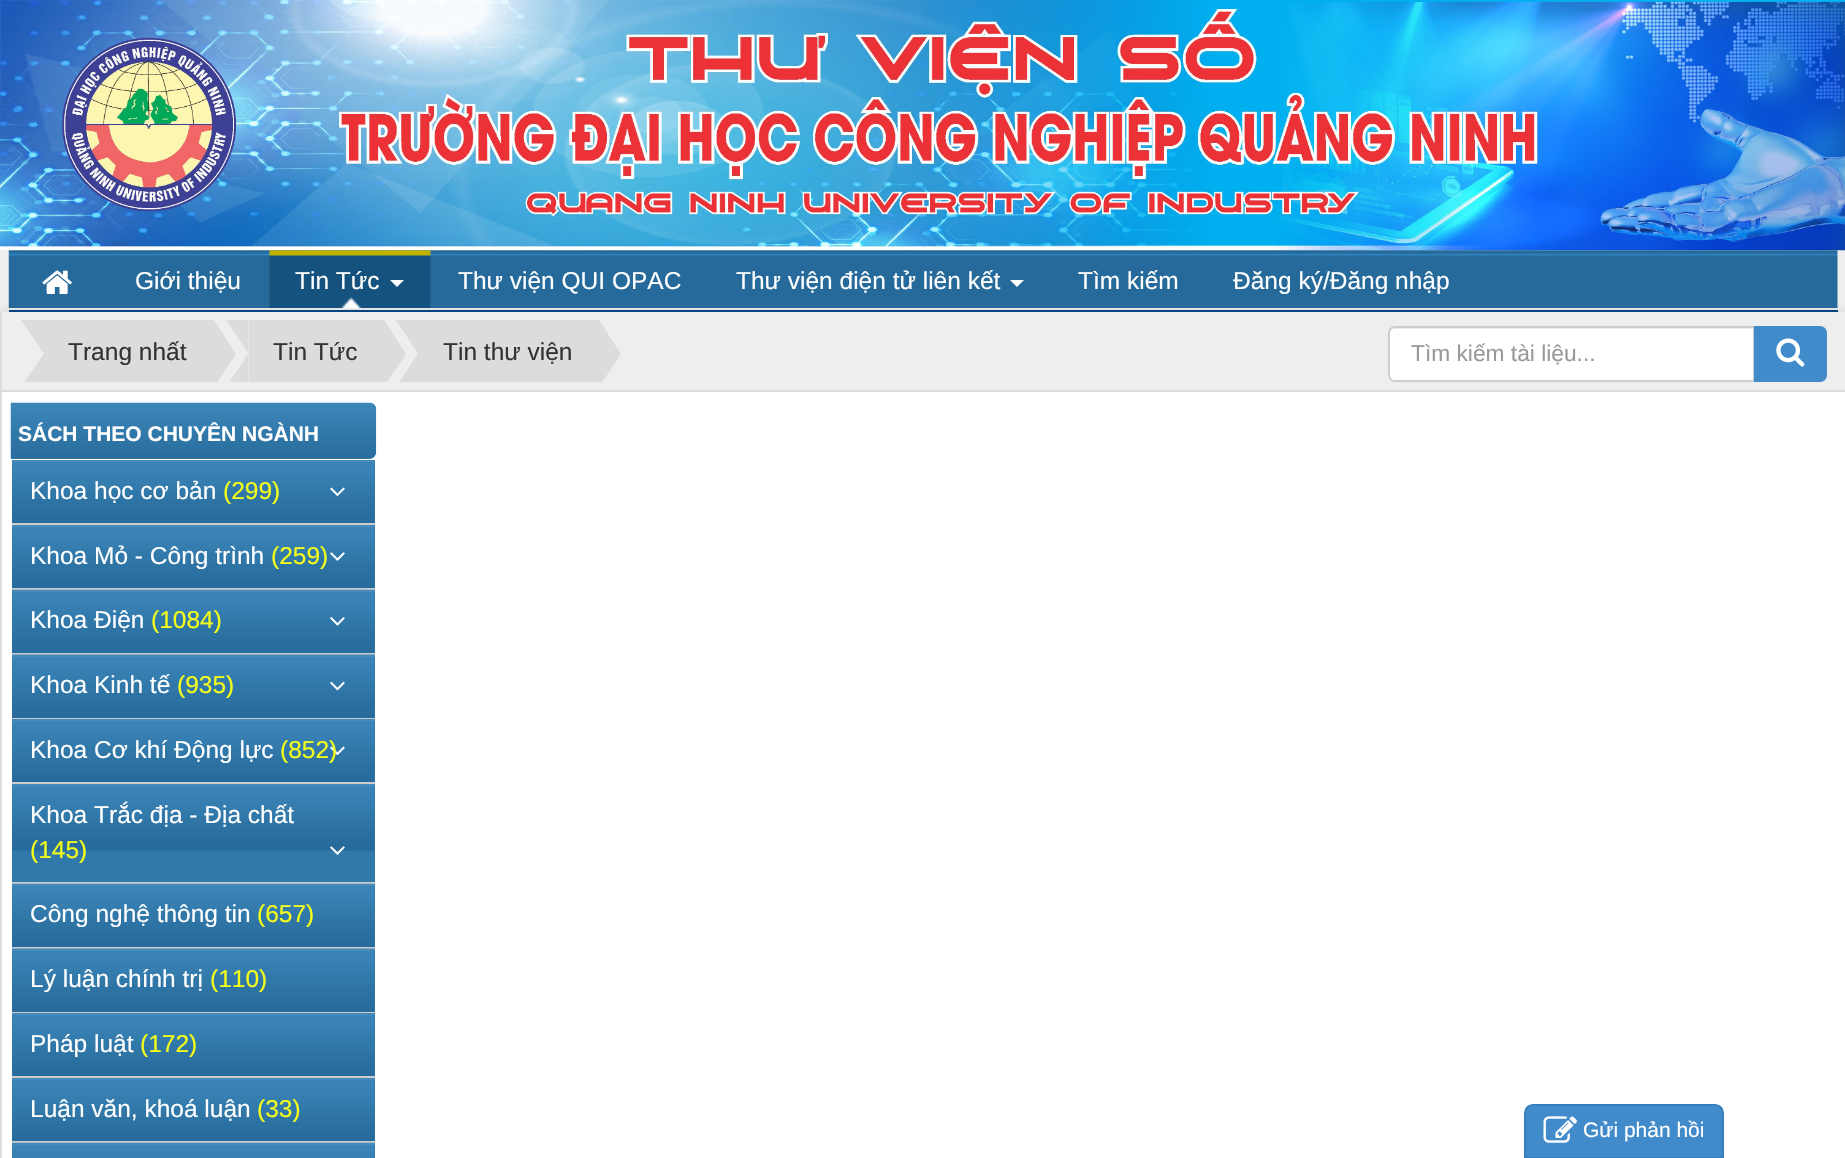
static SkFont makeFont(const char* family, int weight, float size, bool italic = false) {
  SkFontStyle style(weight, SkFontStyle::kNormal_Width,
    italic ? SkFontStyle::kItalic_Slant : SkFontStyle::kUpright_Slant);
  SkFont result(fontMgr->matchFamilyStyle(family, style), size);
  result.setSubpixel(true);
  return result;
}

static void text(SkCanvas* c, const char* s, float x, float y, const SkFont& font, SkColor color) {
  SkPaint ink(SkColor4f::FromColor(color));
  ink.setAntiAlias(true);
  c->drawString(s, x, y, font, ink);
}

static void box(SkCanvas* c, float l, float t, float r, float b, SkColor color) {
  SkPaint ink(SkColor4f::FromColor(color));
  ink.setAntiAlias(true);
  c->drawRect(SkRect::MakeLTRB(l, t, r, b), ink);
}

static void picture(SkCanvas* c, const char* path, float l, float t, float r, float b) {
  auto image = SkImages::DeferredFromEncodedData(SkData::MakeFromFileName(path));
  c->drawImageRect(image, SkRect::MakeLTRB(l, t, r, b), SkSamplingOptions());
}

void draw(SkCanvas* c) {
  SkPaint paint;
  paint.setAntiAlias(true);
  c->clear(0xffeeeeee);
  picture(c, "img_01.png", 0, 0, 1845, 251);
  paint.setColor(0x26000000);
  paint.setMaskFilter(SkMaskFilter::MakeBlur(kNormal_SkBlurStyle, 3.5f));
  c->drawRect(SkRect::MakeLTRB(0, 312, 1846, 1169), paint);
  paint.setMaskFilter(nullptr);
  picture(c, "img_02.png", 8, 250, 1838, 308);
  box(c, 9, 310, 1838, 312, 0xff064481);
  picture(c, "img_03.png", 42, 270, 72, 294);
  SkFont face1 = makeFont("Liberation Sans", 400, 24.5f);
  text(c, "Giới thiệu", 135, 289, face1, 0xffffffff);
  picture(c, "img_04.png", 269, 250, 431, 308);
  text(c, "Tin Tức", 295, 289, face1, 0xffffffff);
  paint.setColor(0xffffffff);
  c->drawPath(SkPathBuilder().moveTo(390, 280).lineTo(404, 280).lineTo(397, 287).close().detach(), paint);
  text(c, "Thư viện QUI OPAC", 458, 289, face1, 0xffffffff);
  text(c, "Thư viện điện tử liên kết", 736, 289, face1, 0xffffffff);
  c->drawPath(SkPathBuilder().moveTo(1010, 280).lineTo(1024, 280).lineTo(1017, 287).close().detach(), paint);
  text(c, "Tìm kiếm", 1078, 289, face1, 0xffffffff);
  text(c, "Đăng ký/Đăng nhập", 1233, 289, face1, 0xffffffff);
  box(c, 2, 392, 1845, 1158, 0xffffffff);
  box(c, 0, 312, 2, 1158, 0xffdcdcdc);
  box(c, 2, 390, 1845, 392, 0xffdcdcdc);
  box(c, 2, 312, 1845, 390, 0xffeeeeee);
  box(c, 44, 320, 212, 382, 0xffdcdcdc);
  c->save();
  c->clipRect(SkRect::MakeLTRB(19, 320, 1370, 382));
  paint.setColor(0xffdcdcdc);
  c->drawPath(SkPathBuilder().moveTo(19, 317).lineTo(44, 317).lineTo(44, 353.5f).close().detach(), paint);
  c->drawPath(SkPathBuilder().moveTo(44, 390).lineTo(19, 390).lineTo(44, 353.5f).close().detach(), paint);
  c->restore();
  text(c, "Trang nhất", 68, 360, face1, 0xff333333);
  c->save();
  c->clipRect(SkRect::MakeLTRB(19, 320, 1370, 382));
  c->drawPath(SkPathBuilder().moveTo(212, 390).lineTo(212, 317).lineTo(236, 354).close().detach(), paint);
  c->restore();
  box(c, 249, 320, 382, 382, 0xffdcdcdc);
  c->save();
  c->clipRect(SkRect::MakeLTRB(19, 320, 1370, 382));
  c->drawPath(SkPathBuilder().moveTo(224, 317).lineTo(248.5f, 317).lineTo(248.5f, 353.5f).close().detach(), paint);
  c->drawPath(SkPathBuilder().moveTo(248.5f, 390).lineTo(224, 390).lineTo(248.5f, 353.5f).close().detach(), paint);
  c->restore();
  text(c, "Tin Tức", 273, 360, face1, 0xff333333);
  c->save();
  c->clipRect(SkRect::MakeLTRB(19, 320, 1370, 382));
  c->drawPath(SkPathBuilder().moveTo(382, 390).lineTo(382, 317).lineTo(406, 354).close().detach(), paint);
  c->restore();
  box(c, 418, 320, 597, 382, 0xffdcdcdc);
  c->save();
  c->clipRect(SkRect::MakeLTRB(19, 320, 1370, 382));
  c->drawPath(SkPathBuilder().moveTo(394, 317).lineTo(418, 317).lineTo(418, 353.5f).close().detach(), paint);
  c->drawPath(SkPathBuilder().moveTo(418, 390).lineTo(394, 390).lineTo(418, 353.5f).close().detach(), paint);
  c->restore();
  text(c, "Tin thư viện", 443, 360, face1, 0xff333333);
  c->save();
  c->clipRect(SkRect::MakeLTRB(19, 320, 1370, 382));
  c->drawPath(SkPathBuilder().moveTo(597, 390).lineTo(597, 317).lineTo(621, 354).close().detach(), paint);
  c->restore();
  paint.setColor(0xffffffff);
  c->drawPath(SkPathBuilder().moveTo(1395, 326).lineTo(1755, 326).lineTo(1755, 382).lineTo(1395, 382).cubicTo(1391, 382, 1388, 379, 1388, 375).lineTo(1388, 333).cubicTo(1388, 329, 1391, 326, 1395, 326).close().detach(), paint);
  paint.setColor(0xffececec);
  c->drawPath(SkPathBuilder().moveTo(1395, 329).lineTo(1754, 329).lineTo(1754, 327).lineTo(1395, 327).cubicTo(1391, 327, 1390, 331, 1390, 334).cubicTo(1390, 331, 1392, 329, 1395, 329).close().detach(), paint);
  paint.setStyle(SkPaint::kStroke_Style);
  paint.setStrokeWidth(2);
  paint.setColor(0xffcccccc);
  c->drawPath(SkPathBuilder().moveTo(1395, 327).lineTo(1754, 327).lineTo(1754, 381).lineTo(1395, 381).cubicTo(1391.5f, 381, 1389, 378.5f, 1389, 375).lineTo(1389, 333).cubicTo(1389, 329.5f, 1391.5f, 327, 1395, 327).close().detach(), paint);
  SkFont face2 = makeFont("Liberation Sans", 400, 22.75f);
  text(c, "Tìm kiếm tài liệu...", 1411, 361, face2, 0xff999999);
  paint.setStyle(SkPaint::kFill_Style);
  paint.setColor(0xff428bca);
  c->drawPath(SkPathBuilder().moveTo(1755, 327).lineTo(1820, 327).cubicTo(1823.5f, 327, 1826, 329.5f, 1826, 333).lineTo(1826, 375).cubicTo(1826, 378.5f, 1823.5f, 381, 1820, 381).lineTo(1755, 381).close().detach(), paint);
  paint.setStyle(SkPaint::kStroke_Style);
  c->drawPath(SkPathBuilder().moveTo(1755, 327).lineTo(1820, 327).cubicTo(1823.5f, 327, 1826, 329.5f, 1826, 333).lineTo(1826, 375).cubicTo(1826, 378.5f, 1823.5f, 381, 1820, 381).lineTo(1755, 381).close().detach(), paint);
  picture(c, "img_05.png", 1776, 338, 1805, 367);
  paint.setStyle(SkPaint::kFill_Style);
  paint.setColor(0xff3179ab);
  c->drawPath(SkPathBuilder().moveTo(11, 403).lineTo(369, 403).cubicTo(373, 403, 376, 406, 376, 410).lineTo(376, 452).cubicTo(376, 456, 373, 459, 369, 459).lineTo(11, 459).close().detach(), paint);
  picture(c, "img_06.png", 10, 402, 377, 459);
  SkFont face3 = makeFont("Liberation Sans", 700, 21);
  text(c, "SÁCH THEO CHUYÊN NGÀNH", 18, 441, face3, 0xffffffff);
  box(c, 12, 460, 375, 523, 0xff3179ab);
  picture(c, "img_07.png", 12, 460, 375, 523);
  box(c, 12, 460, 375, 462, 0x0dffffff);
  box(c, 12, 523, 375, 525, 0xffcccccc);
  text(c, "Khoa học cơ bản", 30, 499, face1, 0xffffffff);
  text(c, "(299)", 223, 499, face1, 0xfff5ff19);
  picture(c, "img_08.png", 330, 487, 345, 496);
  box(c, 12, 525, 375, 588, 0xff3179ab);
  picture(c, "img_09.png", 12, 525, 375, 588);
  box(c, 12, 525, 375, 527, 0x0dffffff);
  box(c, 12, 588, 375, 590, 0xffcccccc);
  text(c, "Khoa Mỏ - Công trình", 30, 564, face1, 0xffffffff);
  text(c, "(259)", 271, 564, face1, 0xfff5ff19);
  picture(c, "img_10.png", 330, 552, 345, 561);
  box(c, 12, 590, 375, 653, 0xff3179ab);
  picture(c, "img_11.png", 12, 589, 375, 653);
  box(c, 12, 590, 375, 592, 0x0dffffff);
  box(c, 12, 653, 375, 655, 0xffcccccc);
  text(c, "Khoa Điện", 30, 628, face1, 0xffffffff);
  text(c, "(1084)", 151, 628, face1, 0xfff5ff19);
  picture(c, "img_12.png", 330, 617, 345, 626);
  box(c, 12, 655, 375, 718, 0xff3179ab);
  picture(c, "img_13.png", 12, 654, 375, 718);
  box(c, 12, 655, 375, 657, 0x0dffffff);
  box(c, 12, 718, 375, 719, 0xffcccccc);
  text(c, "Khoa Kinh tế", 30, 693, face1, 0xffffffff);
  text(c, "(935)", 177, 693, face1, 0xfff5ff19);
  picture(c, "img_14.png", 330, 681, 345, 691);
  box(c, 12, 719, 375, 782, 0xff3179ab);
  picture(c, "img_07.png", 12, 719, 375, 782);
  box(c, 12, 719, 375, 721, 0x0dffffff);
  box(c, 12, 782, 375, 784, 0xffcccccc);
  text(c, "Khoa Cơ khí Động lực", 30, 758, face1, 0xffffffff);
  picture(c, "img_08.png", 330, 746, 345, 755);
  text(c, "(852)", 280, 758, face1, 0xfff5ff19);
  box(c, 12, 784, 375, 882, 0xff3179ab);
  picture(c, "img_15.png", 12, 784, 375, 851);
  box(c, 12, 784, 375, 786, 0x0dffffff);
  box(c, 12, 882, 375, 884, 0xffcccccc);
  text(c, "Khoa Trắc địa - Địa chất", 30, 823, face1, 0xffffffff);
  text(c, "(145)", 30, 858, face1, 0xfff5ff19);
  picture(c, "img_16.png", 330, 846, 345, 855);
  box(c, 12, 884, 375, 947, 0xff3179ab);
  picture(c, "img_11.png", 12, 883, 375, 947);
  box(c, 12, 884, 375, 886, 0x0dffffff);
  box(c, 12, 947, 375, 949, 0xffcccccc);
  text(c, "Công nghệ thông tin", 30, 922, face1, 0xffffffff);
  text(c, "(657)", 257, 922, face1, 0xfff5ff19);
  box(c, 12, 949, 375, 1012, 0xff3179ab);
  picture(c, "img_13.png", 12, 948, 375, 1012);
  box(c, 12, 949, 375, 951, 0x0dffffff);
  box(c, 12, 1012, 375, 1013, 0xffcccccc);
  text(c, "Lý luận chính trị", 30, 987, face1, 0xffffffff);
  text(c, "(110)", 210, 987, face1, 0xfff5ff19);
  box(c, 12, 1013, 375, 1076, 0xff3179ab);
  picture(c, "img_07.png", 12, 1013, 375, 1076);
  box(c, 12, 1013, 375, 1015, 0x0dffffff);
  box(c, 12, 1076, 375, 1078, 0xffcccccc);
  text(c, "Pháp luật", 30, 1052, face1, 0xffffffff);
  text(c, "(172)", 140, 1052, face1, 0xfff5ff19);
  box(c, 12, 1078, 375, 1141, 0xff3179ab);
  picture(c, "img_09.png", 12, 1078, 375, 1141);
  box(c, 12, 1078, 375, 1080, 0x0dffffff);
  box(c, 12, 1141, 375, 1143, 0xffcccccc);
  text(c, "Luận văn, khoá luận", 30, 1117, face1, 0xffffffff);
  text(c, "(33)", 257, 1117, face1, 0xfff5ff19);
  box(c, 12, 1143, 375, 1158, 0xff3179ab);
  picture(c, "img_17.png", 12, 1142, 375, 1158);
  box(c, 12, 1143, 375, 1145, 0x0dffffff);
  paint.setColor(0xff428bca);
  c->drawPath(SkPathBuilder().moveTo(1533, 1105).lineTo(1715, 1105).cubicTo(1719.5f, 1105, 1723, 1108.5f, 1723, 1113).lineTo(1723, 1158).lineTo(1525, 1158).lineTo(1525, 1113).cubicTo(1525, 1108.5f, 1528.5f, 1105, 1533, 1105).close().detach(), paint);
  paint.setStyle(SkPaint::kStroke_Style);
  paint.setColor(0xff357ebd);
  c->drawPath(SkPathBuilder().moveTo(1533, 1105).lineTo(1715, 1105).cubicTo(1719.5f, 1105, 1723, 1108.5f, 1723, 1113).lineTo(1723, 1158).lineTo(1525, 1158).lineTo(1525, 1113).cubicTo(1525, 1108.5f, 1528.5f, 1105, 1533, 1105).close().detach(), paint);
  picture(c, "img_18.png", 1543, 1116, 1577, 1143);
  SkFont face4 = makeFont("Liberation Sans", 400, 21);
  text(c, "Gửi phản hồi", 1583, 1137, face4, 0xffffffff);
}
